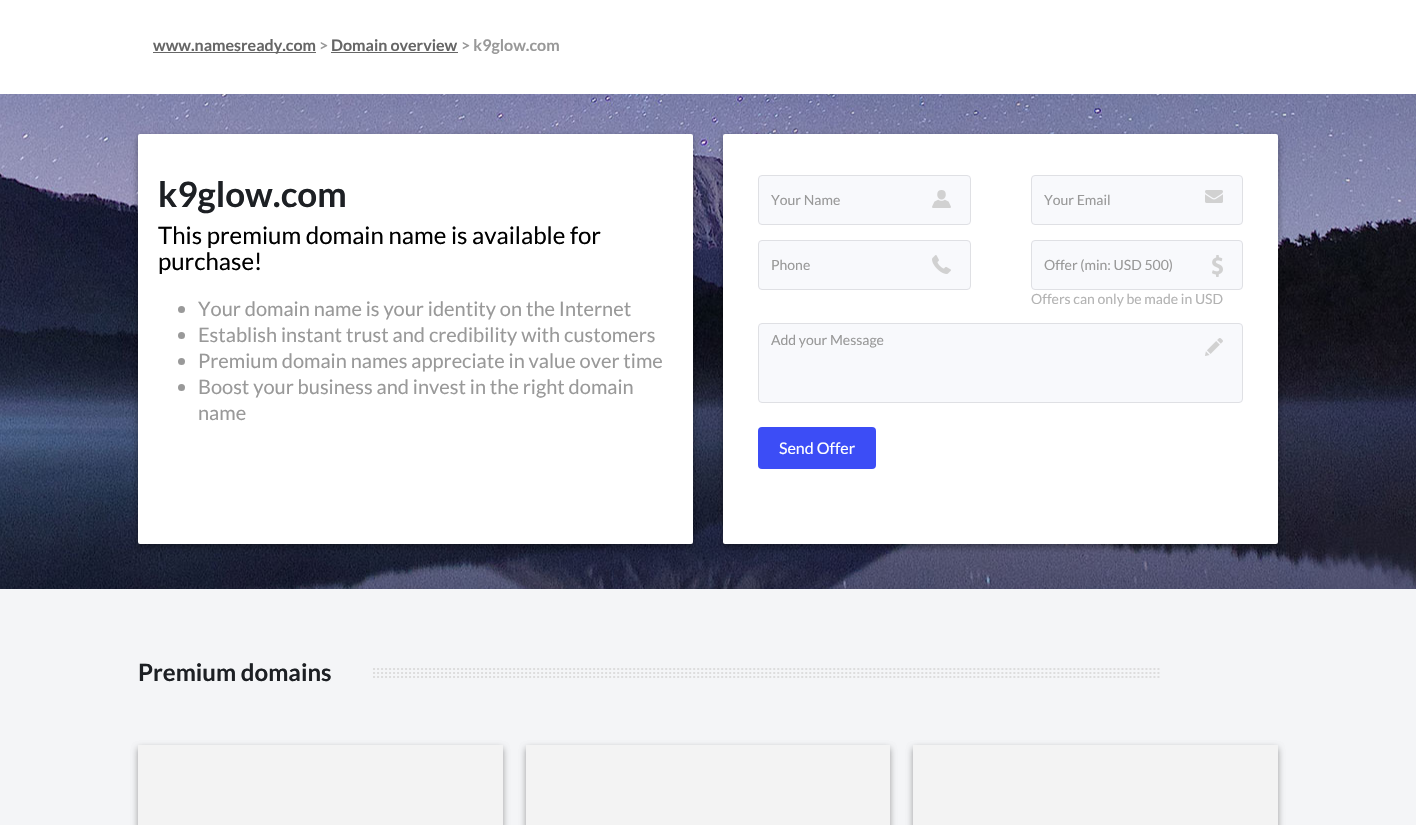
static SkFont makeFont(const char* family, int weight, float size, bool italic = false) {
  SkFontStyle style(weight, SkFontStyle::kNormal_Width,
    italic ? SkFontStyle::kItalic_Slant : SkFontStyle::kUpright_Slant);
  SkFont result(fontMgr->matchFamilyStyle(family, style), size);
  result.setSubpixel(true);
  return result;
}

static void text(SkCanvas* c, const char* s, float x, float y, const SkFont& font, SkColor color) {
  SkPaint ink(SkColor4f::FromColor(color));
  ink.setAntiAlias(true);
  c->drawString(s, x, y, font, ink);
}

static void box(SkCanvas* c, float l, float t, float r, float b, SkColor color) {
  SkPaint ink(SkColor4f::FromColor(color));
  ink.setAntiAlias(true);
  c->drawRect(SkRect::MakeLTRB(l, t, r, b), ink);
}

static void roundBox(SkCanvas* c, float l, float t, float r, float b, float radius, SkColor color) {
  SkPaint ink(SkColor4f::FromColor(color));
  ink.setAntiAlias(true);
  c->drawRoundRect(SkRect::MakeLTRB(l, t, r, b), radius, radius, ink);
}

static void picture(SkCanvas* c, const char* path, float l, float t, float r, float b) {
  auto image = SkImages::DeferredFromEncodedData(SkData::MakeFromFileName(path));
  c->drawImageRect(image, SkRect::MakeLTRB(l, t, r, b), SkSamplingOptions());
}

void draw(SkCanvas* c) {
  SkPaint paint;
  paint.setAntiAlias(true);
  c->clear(0xfff4f5f7);
  box(c, 0, 0, 1416, 94, 0xffffffff);
  box(c, 153, 52, 316, 53, 0xff666666);
  SkFont face1 = makeFont("Lato", 700, 16);
  text(c, "www.namesready.com", 153, 51, face1, 0xff666666);
  text(c, ">", 319, 51, face1, 0xff999999);
  text(c, "Domain overview", 331, 51, face1, 0xff666666);
  box(c, 331, 52, 458, 53, 0xff666666);
  text(c, "> k9glow.com", 461, 51, face1, 0xff999999);
  picture(c, "img_01.png", 0, 94, 1416, 589);
  paint.setColor(0x3b000000);
  paint.setMaskFilter(SkMaskFilter::MakeBlur(kNormal_SkBlurStyle, 3));
  c->drawRoundRect(SkRect::MakeLTRB(138, 137, 693, 547), 2, 2, paint);
  paint.setMaskFilter(nullptr);
  paint.setColor(0x29000000);
  paint.setMaskFilter(SkMaskFilter::MakeBlur(kNormal_SkBlurStyle, 3));
  c->drawRoundRect(SkRect::MakeLTRB(138, 137, 693, 547), 2, 2, paint);
  paint.setMaskFilter(nullptr);
  roundBox(c, 138, 134, 693, 544, 2, 0xffffffff);
  SkFont face2 = makeFont("Lato", 700, 35);
  text(c, "k9glow.com", 158, 207, face2, 0xff1d2024);
  SkFont face3 = makeFont("Lato", 400, 24);
  text(c, "This premium domain name is available for", 158, 244, face3, 0xff000000);
  text(c, "purchase!", 158, 270, face3, 0xff000000);
  paint.setColor(0xff999999);
  c->drawCircle(181.5f, 309.5f, 3.5f, paint);
  SkFont face4 = makeFont("Lato", 400, 20);
  text(c, "Your domain name is your identity on the Internet", 198, 316, face4, 0xff999999);
  c->drawCircle(181.5f, 335.5f, 3.5f, paint);
  text(c, "Establish instant trust and credibility with customers", 198, 342, face4, 0xff999999);
  c->drawCircle(181.5f, 361.5f, 3.5f, paint);
  text(c, "Premium domain names appreciate in value over time", 198, 368, face4, 0xff999999);
  c->drawCircle(181.5f, 387.5f, 3.5f, paint);
  text(c, "Boost your business and invest in the right domain", 198, 394, face4, 0xff999999);
  text(c, "name", 198, 420, face4, 0xff999999);
  paint.setColor(0x3b000000);
  paint.setMaskFilter(SkMaskFilter::MakeBlur(kNormal_SkBlurStyle, 3));
  c->drawRoundRect(SkRect::MakeLTRB(723, 137, 1278, 547), 2, 2, paint);
  paint.setMaskFilter(nullptr);
  paint.setColor(0x29000000);
  paint.setMaskFilter(SkMaskFilter::MakeBlur(kNormal_SkBlurStyle, 3));
  c->drawRoundRect(SkRect::MakeLTRB(723, 137, 1278, 547), 2, 2, paint);
  paint.setMaskFilter(nullptr);
  roundBox(c, 723, 134, 1278, 544, 2, 0xffffffff);
  paint.setColor(0xfff8f9fc);
  c->drawRoundRect(SkRect::MakeLTRB(758.5f, 175.5f, 970.5f, 224.5f), 3.5f, 3.5f, paint);
  paint.setStyle(SkPaint::kStroke_Style);
  paint.setStrokeWidth(1);
  paint.setColor(0xffdfe0e4);
  c->drawRoundRect(SkRect::MakeLTRB(758.5f, 175.5f, 970.5f, 224.5f), 3.5f, 3.5f, paint);
  SkFont face5 = makeFont("Lato", 400, 14);
  text(c, "Your Name", 771, 205, face5, 0xff999999);
  picture(c, "img_02.png", 932, 190, 951, 208);
  paint.setStyle(SkPaint::kFill_Style);
  paint.setColor(0xfff8f9fc);
  c->drawRoundRect(SkRect::MakeLTRB(758.5f, 240.5f, 970.5f, 289.5f), 3.5f, 3.5f, paint);
  paint.setStyle(SkPaint::kStroke_Style);
  paint.setColor(0xffdfe0e4);
  c->drawRoundRect(SkRect::MakeLTRB(758.5f, 240.5f, 970.5f, 289.5f), 3.5f, 3.5f, paint);
  text(c, "Phone", 771, 270, face5, 0xff999999);
  picture(c, "img_03.png", 932, 255, 951, 274);
  paint.setStyle(SkPaint::kFill_Style);
  paint.setColor(0xfff8f9fc);
  c->drawRoundRect(SkRect::MakeLTRB(1031.5f, 175.5f, 1242.5f, 224.5f), 3.5f, 3.5f, paint);
  paint.setStyle(SkPaint::kStroke_Style);
  paint.setColor(0xffdfe0e4);
  c->drawRoundRect(SkRect::MakeLTRB(1031.5f, 175.5f, 1242.5f, 224.5f), 3.5f, 3.5f, paint);
  text(c, "Your Email", 1044, 205, face5, 0xff999999);
  picture(c, "img_04.png", 1205, 190, 1223, 203);
  paint.setStyle(SkPaint::kFill_Style);
  paint.setColor(0xfff8f9fc);
  c->drawRoundRect(SkRect::MakeLTRB(1031.5f, 240.5f, 1242.5f, 289.5f), 3.5f, 3.5f, paint);
  paint.setStyle(SkPaint::kStroke_Style);
  paint.setColor(0xffdfe0e4);
  c->drawRoundRect(SkRect::MakeLTRB(1031.5f, 240.5f, 1242.5f, 289.5f), 3.5f, 3.5f, paint);
  picture(c, "img_05.png", 1212, 255, 1223, 277);
  text(c, "Offer (min: USD 500)", 1044, 270, face5, 0xff999999);
  text(c, "Offers can only be made in USD", 1031, 304, face5, 0xffb3b3b3);
  paint.setStyle(SkPaint::kFill_Style);
  paint.setColor(0xfff8f9fc);
  c->drawRoundRect(SkRect::MakeLTRB(758.5f, 323.5f, 1242.5f, 402.5f), 3.5f, 3.5f, paint);
  paint.setStyle(SkPaint::kStroke_Style);
  paint.setColor(0xffdfe0e4);
  c->drawRoundRect(SkRect::MakeLTRB(758.5f, 323.5f, 1242.5f, 402.5f), 3.5f, 3.5f, paint);
  text(c, "Add your Message", 771, 345, face5, 0xff999999);
  picture(c, "img_06.png", 1205, 338, 1223, 356);
  roundBox(c, 758, 427, 876, 469, 4, 0xff3c4df6);
  SkFont face6 = makeFont("Lato", 400, 16);
  text(c, "Send Offer", 779, 454, face6, 0xffffffff);
  SkFont face7 = makeFont("Lato", 700, 24);
  text(c, "Premium domains", 138, 681, face7, 0xff1d2024);
  picture(c, "img_07.png", 373, 668, 1160, 678);
  paint.setStyle(SkPaint::kFill_Style);
  paint.setColor(0x3b000000);
  paint.setMaskFilter(SkMaskFilter::MakeBlur(kNormal_SkBlurStyle, 3));
  c->drawRoundRect(SkRect::MakeLTRB(138, 748, 503, 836), 2, 2, paint);
  paint.setMaskFilter(nullptr);
  paint.setColor(0x29000000);
  paint.setMaskFilter(SkMaskFilter::MakeBlur(kNormal_SkBlurStyle, 3));
  c->drawRoundRect(SkRect::MakeLTRB(138, 748, 503, 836), 2, 2, paint);
  paint.setMaskFilter(nullptr);
  box(c, 138, 745, 503, 825, 0xfff3f3f3);
  paint.setColor(0x3b000000);
  paint.setMaskFilter(SkMaskFilter::MakeBlur(kNormal_SkBlurStyle, 3));
  c->drawRoundRect(SkRect::MakeLTRB(526, 748, 890, 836), 2, 2, paint);
  paint.setMaskFilter(nullptr);
  paint.setColor(0x29000000);
  paint.setMaskFilter(SkMaskFilter::MakeBlur(kNormal_SkBlurStyle, 3));
  c->drawRoundRect(SkRect::MakeLTRB(526, 748, 890, 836), 2, 2, paint);
  paint.setMaskFilter(nullptr);
  box(c, 526, 745, 890, 825, 0xfff3f3f3);
  paint.setColor(0x3b000000);
  paint.setMaskFilter(SkMaskFilter::MakeBlur(kNormal_SkBlurStyle, 3));
  c->drawRoundRect(SkRect::MakeLTRB(913, 748, 1278, 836), 2, 2, paint);
  paint.setMaskFilter(nullptr);
  paint.setColor(0x29000000);
  paint.setMaskFilter(SkMaskFilter::MakeBlur(kNormal_SkBlurStyle, 3));
  c->drawRoundRect(SkRect::MakeLTRB(913, 748, 1278, 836), 2, 2, paint);
  paint.setMaskFilter(nullptr);
  box(c, 913, 745, 1278, 825, 0xfff3f3f3);
}
